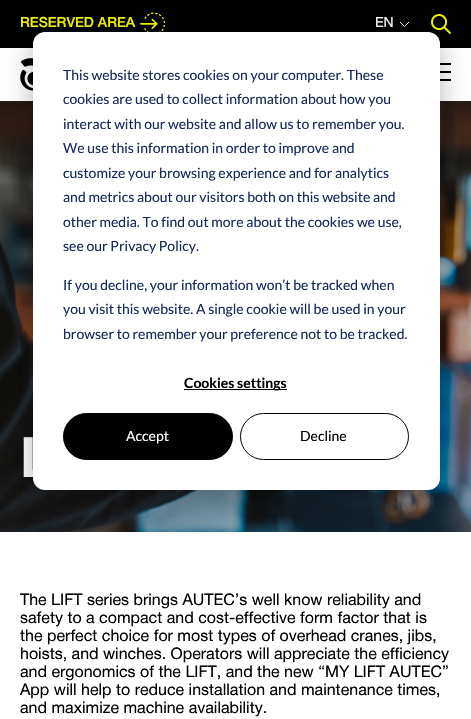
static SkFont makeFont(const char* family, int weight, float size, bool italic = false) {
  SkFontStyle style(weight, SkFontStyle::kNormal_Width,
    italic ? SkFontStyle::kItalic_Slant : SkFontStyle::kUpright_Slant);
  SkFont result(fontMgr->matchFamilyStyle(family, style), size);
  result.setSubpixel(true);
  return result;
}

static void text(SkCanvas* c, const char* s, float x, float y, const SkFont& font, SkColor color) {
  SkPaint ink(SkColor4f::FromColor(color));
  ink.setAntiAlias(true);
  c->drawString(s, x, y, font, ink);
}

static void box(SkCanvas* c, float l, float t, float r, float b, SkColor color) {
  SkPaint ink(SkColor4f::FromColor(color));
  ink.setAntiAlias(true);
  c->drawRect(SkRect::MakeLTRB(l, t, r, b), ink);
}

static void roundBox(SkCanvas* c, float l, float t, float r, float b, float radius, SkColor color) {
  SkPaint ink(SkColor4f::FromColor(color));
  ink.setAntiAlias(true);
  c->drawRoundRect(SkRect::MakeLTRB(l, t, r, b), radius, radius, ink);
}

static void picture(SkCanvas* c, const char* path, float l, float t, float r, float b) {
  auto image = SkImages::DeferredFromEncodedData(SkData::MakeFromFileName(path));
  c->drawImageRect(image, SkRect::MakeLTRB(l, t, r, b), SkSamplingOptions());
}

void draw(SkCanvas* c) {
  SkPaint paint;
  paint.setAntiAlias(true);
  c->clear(0xffffffff);
  box(c, 0, 0, 471, 48, 0xff000000);
  SkFont face1 = makeFont("Helvetica Neue", 500, 14);
  text(c, "RESERVED AREA", 20, 27, face1, 0xfff5f500);
  picture(c, "img_01.png", 140, 12, 165, 32);
  SkFont face2 = makeFont("Helvetica Neue", 400, 14);
  text(c, "EN", 375, 27, face2, 0xffffffff);
  paint.setStyle(SkPaint::kStroke_Style);
  paint.setStrokeWidth(1);
  paint.setColor(0xffffffff);
  c->drawPath(SkPathBuilder().moveTo(400, 22).lineTo(404.5f, 26.5f).lineTo(409, 22).detach(), paint);
  picture(c, "img_02.png", 431, 14, 451, 34);
  picture(c, "img_03.png", 20, 58, 33, 91);
  box(c, 440, 71, 451, 73, 0xff000000);
  box(c, 440, 63, 451, 65, 0xff000000);
  box(c, 440, 79, 451, 81, 0xff000000);
  picture(c, "img_04.png", 0, 101, 471, 532);
  SkFont face3 = makeFont("Helvetica Neue", 700, 56);
  text(c, "L", 20, 477, face3, 0xffffffff);
  SkFont face4 = makeFont("Helvetica Neue", 400, 16);
  text(c, "The LIFT series brings AUTEC’s well know reliability and", 20, 605, face4, 0xff000000);
  text(c, "safety to a compact and cost-effective form factor that is", 20, 623, face4, 0xff000000);
  text(c, "the perfect choice for most types of overhead cranes, jibs,", 20, 641, face4, 0xff000000);
  text(c, "hoists, and winches. Operators will appreciate the efficiency", 20, 659, face4, 0xff000000);
  text(c, "and ergonomics of the LIFT, and the new “MY LIFT AUTEC”", 20, 677, face4, 0xff000000);
  text(c, "App will help to reduce installation and maintenance times,", 20, 695, face4, 0xff000000);
  text(c, "and maximize machine availability.", 20, 713, face4, 0xff000000);
  paint.setStyle(SkPaint::kFill_Style);
  paint.setColor(0x47000000);
  paint.setMaskFilter(SkMaskFilter::MakeBlur(kNormal_SkBlurStyle, 14));
  c->drawRoundRect(SkRect::MakeLTRB(33, 40, 440, 498), 12, 12, paint);
  paint.setMaskFilter(nullptr);
  roundBox(c, 33, 32, 440, 490, 12, 0xffffffff);
  SkFont face5 = makeFont("Lato", 400, 14);
  text(c, "This website stores cookies on your computer. These", 63, 80, face5, 0xff15295a);
  text(c, "cookies are used to collect information about how you", 63, 104, face5, 0xff15295a);
  text(c, "interact with our website and allow us to remember you.", 63, 129, face5, 0xff15295a);
  text(c, "We use this information in order to improve and", 63, 153, face5, 0xff15295a);
  text(c, "customize your browsing experience and for analytics", 63, 178, face5, 0xff15295a);
  text(c, "and metrics about our visitors both on this website and", 63, 202, face5, 0xff15295a);
  text(c, "other media. To find out more about the cookies we use,", 63, 227, face5, 0xff15295a);
  text(c, "see our Privacy Policy.", 63, 251, face5, 0xff15295a);
  text(c, "If you decline, your information won’t be tracked when", 63, 290, face5, 0xff15295a);
  text(c, "you visit this website. A single cookie will be used in your", 63, 314, face5, 0xff15295a);
  text(c, "browser to remember your preference not to be tracked.", 63, 339, face5, 0xff15295a);
  box(c, 184, 389, 287, 390, 0xff000000);
  SkFont face6 = makeFont("Lato", 700, 14);
  text(c, "Cookies settings", 184, 388, face6, 0xff000000);
  paint.setColor(0xff000000);
  c->drawRoundRect(SkRect::MakeLTRB(63.5f, 413.5f, 232.5f, 459.5f), 23, 23, paint);
  paint.setStyle(SkPaint::kStroke_Style);
  c->drawRoundRect(SkRect::MakeLTRB(63.5f, 413.5f, 232.5f, 459.5f), 23, 23, paint);
  text(c, "Accept", 126, 441, face5, 0xffffffff);
  c->drawRoundRect(SkRect::MakeLTRB(240.5f, 413.5f, 408.5f, 459.5f), 23, 23, paint);
  text(c, "Decline", 300, 441, face5, 0xff000000);
}
